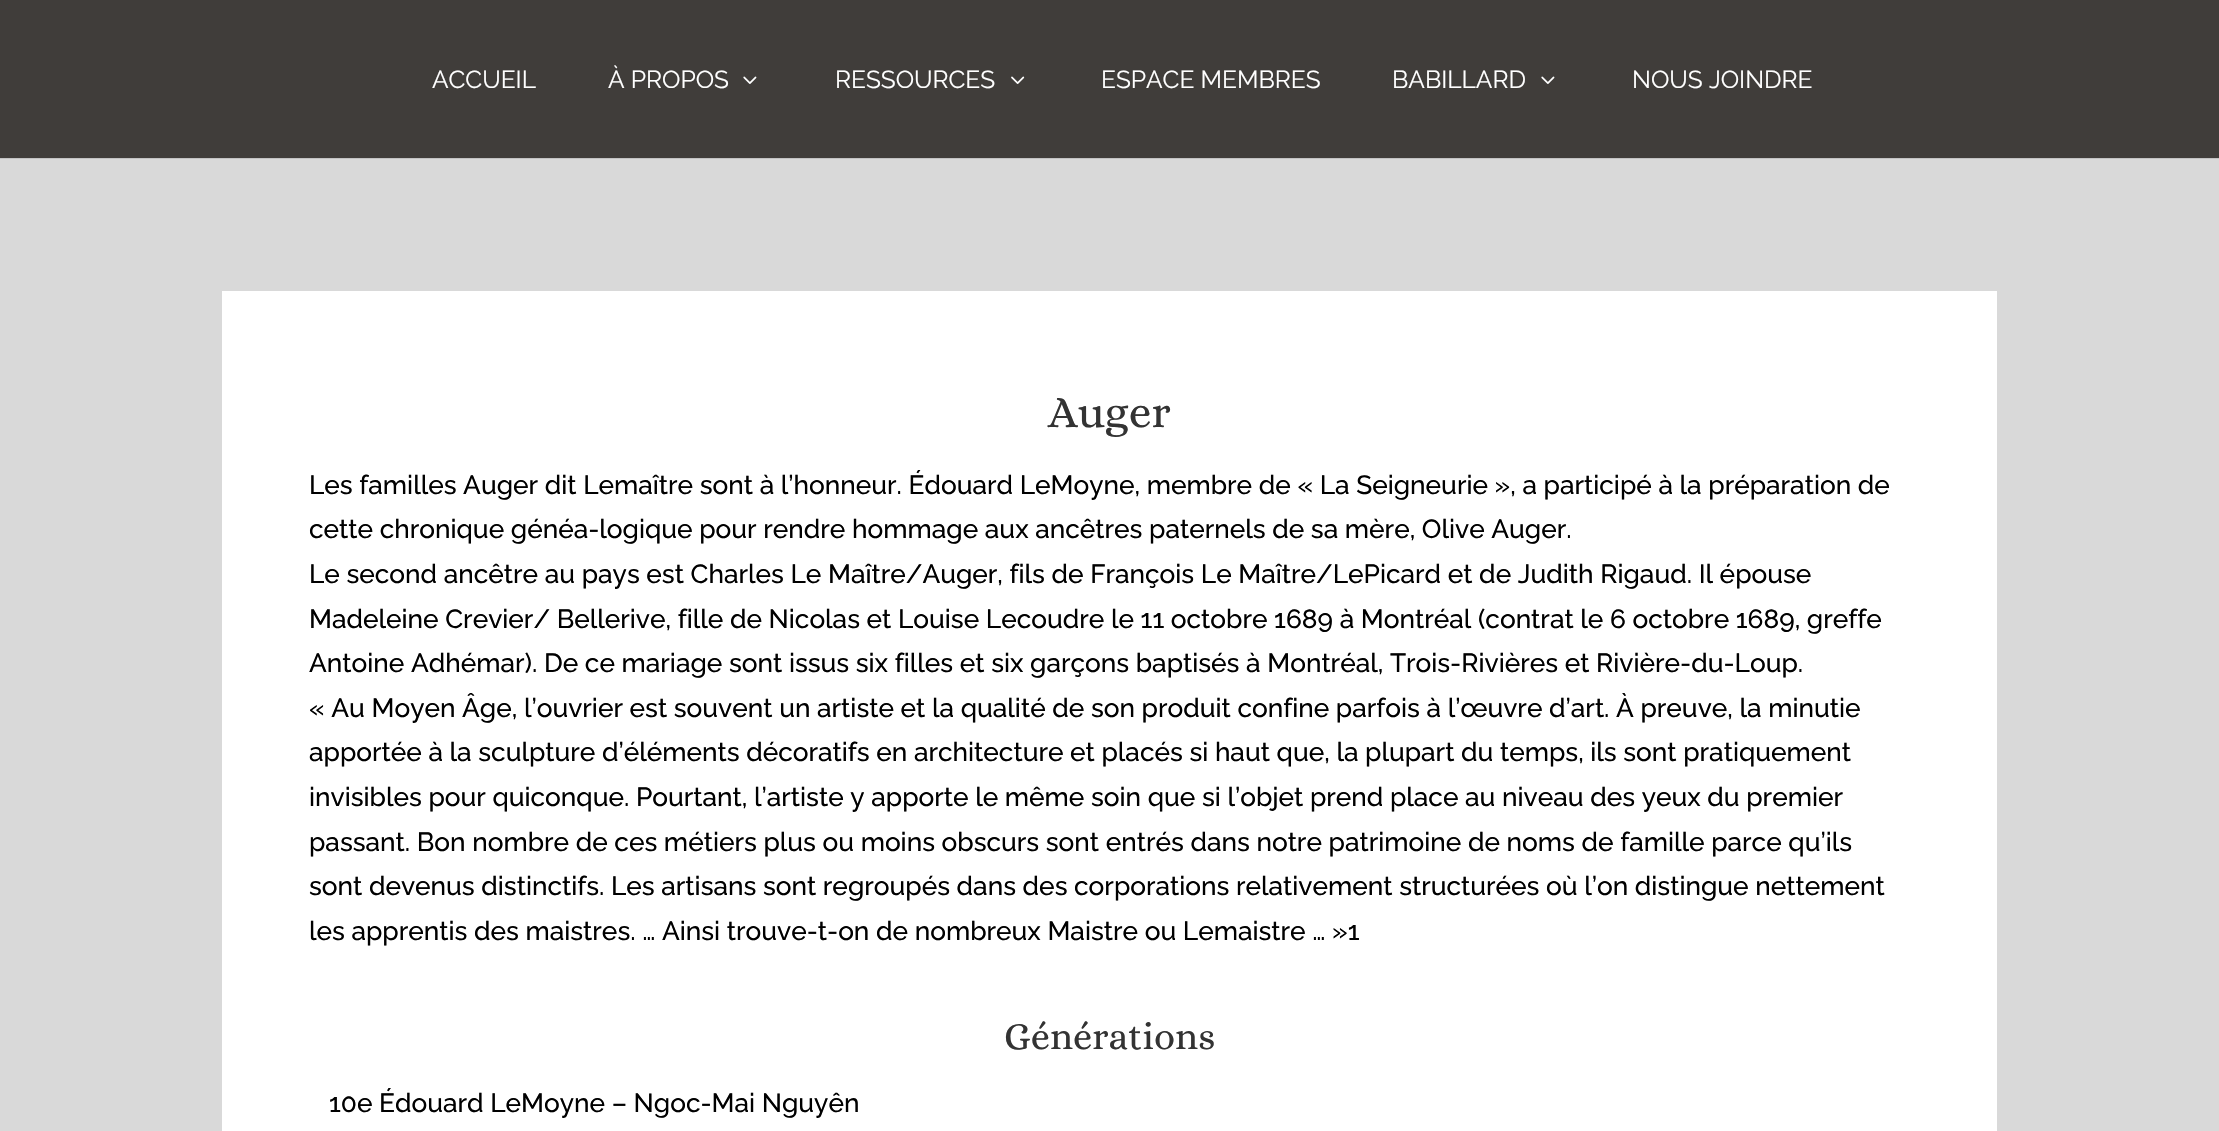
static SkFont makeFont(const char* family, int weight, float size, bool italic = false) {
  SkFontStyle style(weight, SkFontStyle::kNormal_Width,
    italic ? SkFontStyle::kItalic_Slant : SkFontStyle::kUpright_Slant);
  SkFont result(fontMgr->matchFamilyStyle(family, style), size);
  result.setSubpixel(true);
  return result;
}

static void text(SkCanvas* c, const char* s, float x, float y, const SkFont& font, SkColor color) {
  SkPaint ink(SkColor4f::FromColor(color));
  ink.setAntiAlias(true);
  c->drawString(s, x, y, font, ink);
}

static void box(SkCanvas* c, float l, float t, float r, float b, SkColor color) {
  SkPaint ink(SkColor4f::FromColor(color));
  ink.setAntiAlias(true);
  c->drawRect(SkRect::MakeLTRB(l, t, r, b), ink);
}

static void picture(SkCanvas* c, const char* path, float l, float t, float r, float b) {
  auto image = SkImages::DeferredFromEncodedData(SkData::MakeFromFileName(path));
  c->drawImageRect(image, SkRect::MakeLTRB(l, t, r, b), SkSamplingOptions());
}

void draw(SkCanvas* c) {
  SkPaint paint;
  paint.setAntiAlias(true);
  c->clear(0xffd9d9d9);
  box(c, 0, 158, 2219, 159, 0xffc3c3c3);
  box(c, 0, 0, 2219, 158, 0xff403d3a);
  SkFont face1 = makeFont("Raleway", 400, 24.5f);
  text(c, "ACCUEIL", 432, 88, face1, 0xffffffff);
  text(c, "À PROPOS", 608, 88, face1, 0xffffffff);
  picture(c, "img_01.png", 743, 76, 757, 84);
  text(c, "RESSOURCES", 835, 88, face1, 0xffffffff);
  picture(c, "img_02.png", 1011, 76, 1025, 84);
  text(c, "ESPACE MEMBRES", 1101, 88, face1, 0xffffffff);
  text(c, "BABILLARD", 1392, 88, face1, 0xffffffff);
  picture(c, "img_01.png", 1541, 76, 1555, 84);
  text(c, "NOUS JOINDRE", 1632, 88, face1, 0xffffffff);
  box(c, 222, 291, 1997, 1131, 0xffffffff);
  SkFont face2 = makeFont("Alice", 400, 45.5f);
  text(c, "Auger", 1048, 427, face2, 0xff333333);
  SkFont face3 = makeFont("Raleway", 500, 26.25f);
  text(c, "Les familles Auger dit Lemaître sont à l’honneur. Édouard LeMoyne, membre de « La Seigneurie », a participé à la préparation de", 309, 494, face3, 0xff000000);
  text(c, "cette chronique généa-logique pour rendre hommage aux ancêtres paternels de sa mère, Olive Auger.", 309, 538, face3, 0xff000000);
  text(c, "Le second ancêtre au pays est Charles Le Maître/Auger, fils de François Le Maître/LePicard et de Judith Rigaud. Il épouse", 309, 583, face3, 0xff000000);
  text(c, "Madeleine Crevier/ Bellerive, fille de Nicolas et Louise Lecoudre le 11 octobre 1689 à Montréal (contrat le 6 octobre 1689, greffe", 309, 628, face3, 0xff000000);
  text(c, "Antoine Adhémar). De ce mariage sont issus six filles et six garçons baptisés à Montréal, Trois-Rivières et Rivière-du-Loup.", 309, 672, face3, 0xff000000);
  text(c, "« Au Moyen Âge, l’ouvrier est souvent un artiste et la qualité de son produit confine parfois à l’œuvre d’art. À preuve, la minutie", 309, 717, face3, 0xff000000);
  text(c, "apportée à la sculpture d’éléments décoratifs en architecture et placés si haut que, la plupart du temps, ils sont pratiquement", 309, 761, face3, 0xff000000);
  text(c, "invisibles pour quiconque. Pourtant, l’artiste y apporte le même soin que si l’objet prend place au niveau des yeux du premier", 309, 806, face3, 0xff000000);
  text(c, "passant. Bon nombre de ces métiers plus ou moins obscurs sont entrés dans notre patrimoine de noms de famille parce qu’ils", 309, 851, face3, 0xff000000);
  text(c, "sont devenus distinctifs. Les artisans sont regroupés dans des corporations relativement structurées où l’on distingue nettement", 309, 895, face3, 0xff000000);
  text(c, "les apprentis des maistres. … Ainsi trouve-t-on de nombreux Maistre ou Lemaistre … »1", 309, 940, face3, 0xff000000);
  SkFont face4 = makeFont("Alice", 400, 38.5f);
  text(c, "Générations", 1004, 1049, face4, 0xff333333);
  text(c, "10e Édouard LeMoyne – Ngoc-Mai Nguyên", 329, 1112, face3, 0xff000000);
}
